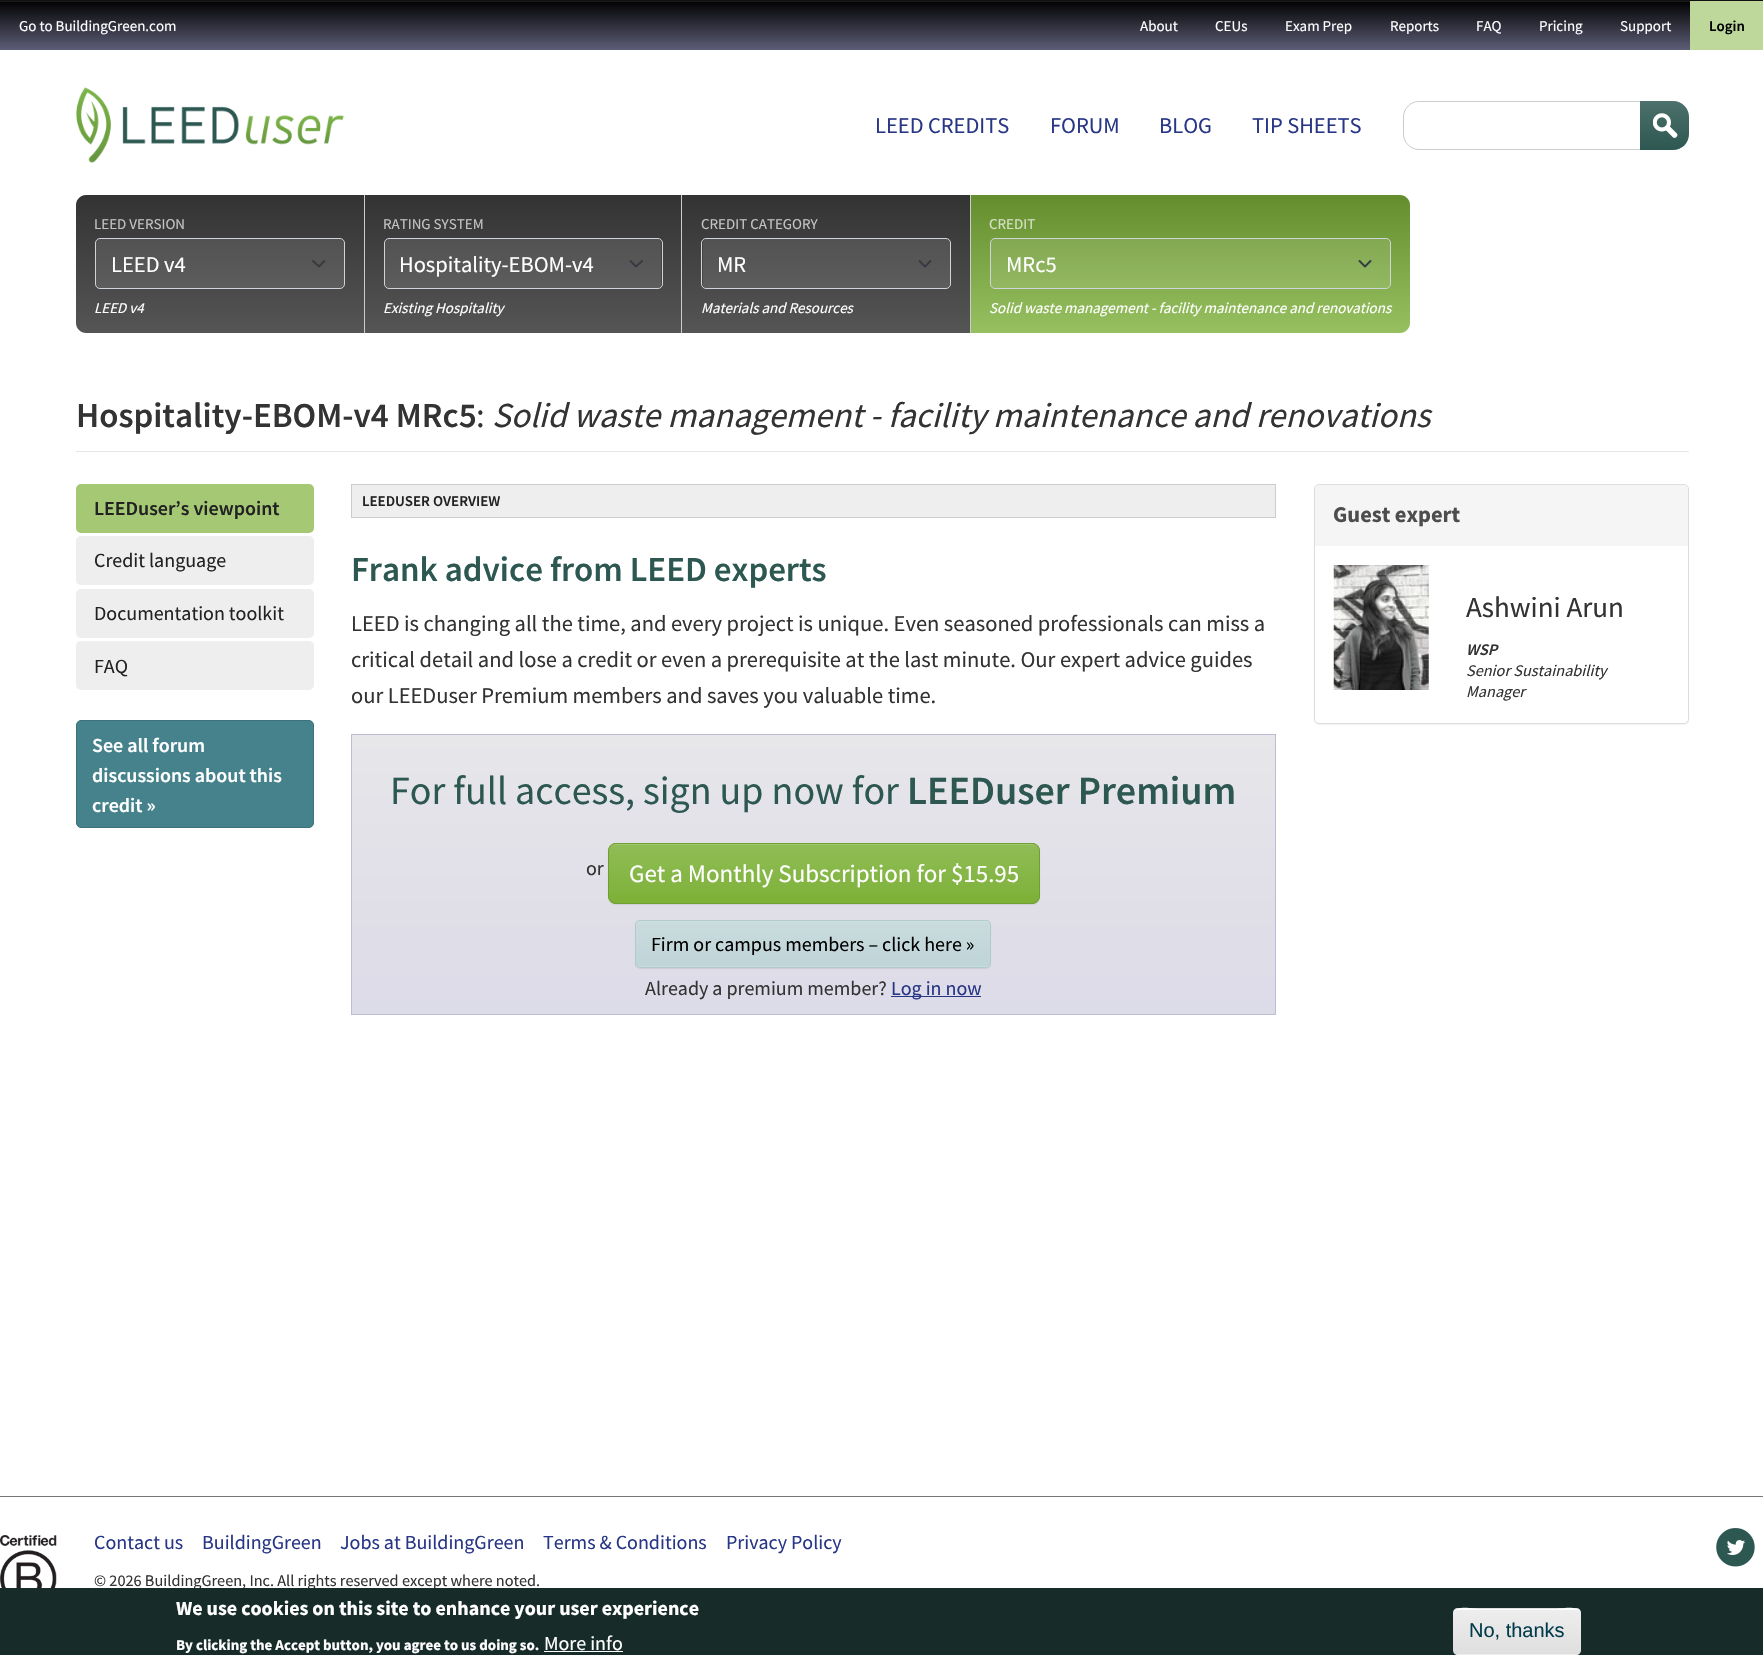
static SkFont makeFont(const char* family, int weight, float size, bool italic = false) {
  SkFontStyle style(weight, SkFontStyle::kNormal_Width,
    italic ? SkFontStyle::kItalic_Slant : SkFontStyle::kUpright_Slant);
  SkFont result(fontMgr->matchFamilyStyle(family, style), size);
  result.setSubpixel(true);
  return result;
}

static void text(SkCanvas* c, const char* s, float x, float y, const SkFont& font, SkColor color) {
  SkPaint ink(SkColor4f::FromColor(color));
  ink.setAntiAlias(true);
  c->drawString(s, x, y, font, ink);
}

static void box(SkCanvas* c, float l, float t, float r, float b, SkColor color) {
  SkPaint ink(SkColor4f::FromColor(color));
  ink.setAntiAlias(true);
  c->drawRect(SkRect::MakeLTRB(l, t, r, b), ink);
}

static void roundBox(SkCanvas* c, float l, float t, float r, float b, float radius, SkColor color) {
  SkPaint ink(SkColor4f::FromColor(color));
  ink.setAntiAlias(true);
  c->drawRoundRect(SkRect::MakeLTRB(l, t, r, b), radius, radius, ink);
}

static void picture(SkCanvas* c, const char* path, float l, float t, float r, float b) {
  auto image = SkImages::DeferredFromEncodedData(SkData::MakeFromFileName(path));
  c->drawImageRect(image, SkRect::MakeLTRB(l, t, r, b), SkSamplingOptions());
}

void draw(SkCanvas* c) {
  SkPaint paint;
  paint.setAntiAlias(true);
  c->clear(0xffffffff);
  {
    const SkColor colors[] = {0xff000000, 0xff5d5d77};
    const float stops[] = {0, 1};
    const SkPoint ends[] = {{882, 0}, {882, 50}};
    paint.setShader(SkGradientShader::MakeLinear(ends, colors, stops, 2, SkTileMode::kClamp));
    paint.setAlpha(255);
  }
  c->drawRect(SkRect::MakeLTRB(0, 2, 1690, 50), paint);
  box(c, 0, 1, 1690, 2, 0xff1c1c1d);
  box(c, 0, 0, 1763, 1, 0xff101010);
  SkFont face1 = makeFont("Source Sans Pro", 400, 15);
  text(c, "Go to BuildingGreen.com", 19, 31, face1, 0xffffffff);
  text(c, "About", 1140, 31, face1, 0xffffffff);
  text(c, "CEUs", 1215, 31, face1, 0xffffffff);
  text(c, "Exam Prep", 1285, 31, face1, 0xffffffff);
  text(c, "Reports", 1390, 31, face1, 0xffffffff);
  text(c, "FAQ", 1476, 31, face1, 0xffffffff);
  text(c, "Pricing", 1539, 31, face1, 0xffffffff);
  text(c, "Support", 1620, 31, face1, 0xffffffff);
  box(c, 1690, 1, 1763, 50, 0xffbed89c);
  SkFont face2 = makeFont("Source Sans Pro", 600, 15);
  text(c, "Login", 1709, 31, face2, 0xff000000);
  picture(c, "img_01.png", 76, 87, 344, 163);
  SkFont face3 = makeFont("Source Sans Pro", 400, 22.5f);
  text(c, "LEED CREDITS", 875, 133, face3, 0xff283686);
  text(c, "FORUM", 1050, 133, face3, 0xff283686);
  text(c, "BLOG", 1159, 133, face3, 0xff283686);
  text(c, "TIP SHEETS", 1252, 133, face3, 0xff283686);
  paint.setStyle(SkPaint::kStroke_Style);
  paint.setStrokeWidth(1);
  paint.setShader(nullptr);
  paint.setColor(0xffcccccc);
  c->drawPath(SkPathBuilder().moveTo(1419, 101.5f).lineTo(1644.5f, 101.5f).lineTo(1644.5f, 149.5f).lineTo(1419, 149.5f).cubicTo(1410.5f, 149.5f, 1403.5f, 142.5f, 1403.5f, 134).lineTo(1403.5f, 117).cubicTo(1403.5f, 108.5f, 1410.5f, 101.5f, 1419, 101.5f).close().detach(), paint);
  paint.setStyle(SkPaint::kFill_Style);
  paint.setColor(0xff2d5751);
  c->drawPath(SkPathBuilder().moveTo(1640, 101).lineTo(1673, 101).cubicTo(1682, 101, 1689, 108, 1689, 117).lineTo(1689, 134).cubicTo(1689, 143, 1682, 150, 1673, 150).lineTo(1640, 150).close().detach(), paint);
  {
    const SkColor colors[] = {0x26ffffff, 0x00ffffff};
    const float stops[] = {0, 1};
    const SkPoint ends[] = {{1664, 101}, {1664, 150}};
    paint.setShader(SkGradientShader::MakeLinear(ends, colors, stops, 2, SkTileMode::kClamp));
    paint.setAlpha(255);
  }
  c->drawPath(SkPathBuilder().moveTo(1640, 101).lineTo(1673, 101).cubicTo(1682, 101, 1689, 108, 1689, 117).lineTo(1689, 134).cubicTo(1689, 143, 1682, 150, 1673, 150).lineTo(1640, 150).close().detach(), paint);
  picture(c, "img_02.png", 1653, 113, 1678, 138);
  {
    const SkColor colors[] = {0xff333333, 0xff555555};
    const float stops[] = {0, 1};
    const SkPoint ends[] = {{220, 195}, {220, 333}};
    paint.setShader(SkGradientShader::MakeLinear(ends, colors, stops, 2, SkTileMode::kClamp));
    paint.setAlpha(255);
  }
  c->drawPath(SkPathBuilder().moveTo(86, 195).lineTo(365, 195).lineTo(365, 333).lineTo(86, 333).cubicTo(80.5f, 333, 76, 328.5f, 76, 323).lineTo(76, 205).cubicTo(76, 199.5f, 80.5f, 195, 86, 195).close().detach(), paint);
  box(c, 364, 195, 365, 333, 0xffcccccc);
  text(c, "LEED VERSION", 94, 229, face1, 0xffc4c4c4);
  roundBox(c, 96, 239, 344, 288, 4, 0x1affffff);
  paint.setStyle(SkPaint::kStroke_Style);
  paint.setStrokeWidth(1.9f);
  paint.setStrokeCap(SkPaint::kRound_Cap);
  paint.setStrokeJoin(SkPaint::kRound_Join);
  paint.setShader(nullptr);
  paint.setColor(0xff343a40);
  c->drawPath(SkPathBuilder().moveTo(313, 261).lineTo(319, 266.5f).lineTo(324.5f, 261).detach(), paint);
  paint.setStrokeWidth(1);
  paint.setStrokeCap(SkPaint::kButt_Cap);
  paint.setStrokeJoin(SkPaint::kMiter_Join);
  paint.setColor(0xffced4da);
  c->drawRoundRect(SkRect::MakeLTRB(95.5f, 238.5f, 344.5f, 288.5f), 4.5f, 4.5f, paint);
  text(c, "LEED v4", 111, 272, face3, 0xffffffff);
  SkFont face4 = makeFont("Source Sans Pro", 400, 15, true);
  text(c, "LEED v4", 94, 313, face4, 0xffffffff);
  paint.setStyle(SkPaint::kFill_Style);
  {
    const SkColor colors[] = {0xff333333, 0xff555555};
    const float stops[] = {0, 1};
    const SkPoint ends[] = {{523, 195}, {523, 333}};
    paint.setShader(SkGradientShader::MakeLinear(ends, colors, stops, 2, SkTileMode::kClamp));
    paint.setAlpha(255);
  }
  c->drawRect(SkRect::MakeLTRB(365, 195, 683, 333), paint);
  box(c, 681, 195, 682, 333, 0xffcccccc);
  text(c, "RATING SYSTEM", 383, 229, face1, 0xffc4c4c4);
  roundBox(c, 385, 239, 661, 288, 4, 0x1affffff);
  paint.setStyle(SkPaint::kStroke_Style);
  paint.setStrokeWidth(1.9f);
  paint.setStrokeCap(SkPaint::kRound_Cap);
  paint.setStrokeJoin(SkPaint::kRound_Join);
  paint.setShader(nullptr);
  paint.setColor(0xff343a40);
  c->drawPath(SkPathBuilder().moveTo(630.5f, 261).lineTo(636, 266.5f).lineTo(642, 261).detach(), paint);
  paint.setStrokeWidth(1);
  paint.setStrokeCap(SkPaint::kButt_Cap);
  paint.setStrokeJoin(SkPaint::kMiter_Join);
  paint.setColor(0xffced4da);
  c->drawRoundRect(SkRect::MakeLTRB(384.5f, 238.5f, 662.5f, 288.5f), 4.5f, 4.5f, paint);
  text(c, "Hospitality-EBOM-v4", 399, 272, face3, 0xffffffff);
  text(c, "Existing Hospitality", 383, 313, face4, 0xffffffff);
  paint.setStyle(SkPaint::kFill_Style);
  {
    const SkColor colors[] = {0xff333333, 0xff555555};
    const float stops[] = {0, 1};
    const SkPoint ends[] = {{826, 195}, {826, 333}};
    paint.setShader(SkGradientShader::MakeLinear(ends, colors, stops, 2, SkTileMode::kClamp));
    paint.setAlpha(255);
  }
  c->drawRect(SkRect::MakeLTRB(683, 195, 970, 333), paint);
  box(c, 970, 195, 971, 333, 0xffcccccc);
  text(c, "CREDIT CATEGORY", 701, 229, face1, 0xffc4c4c4);
  roundBox(c, 703, 239, 950, 288, 4, 0x1affffff);
  paint.setStyle(SkPaint::kStroke_Style);
  paint.setStrokeWidth(1.9f);
  paint.setStrokeCap(SkPaint::kRound_Cap);
  paint.setStrokeJoin(SkPaint::kRound_Join);
  paint.setShader(nullptr);
  paint.setColor(0xff343a40);
  c->drawPath(SkPathBuilder().moveTo(919.5f, 261).lineTo(925, 266.5f).lineTo(930.5f, 261).detach(), paint);
  paint.setStrokeWidth(1);
  paint.setStrokeCap(SkPaint::kButt_Cap);
  paint.setStrokeJoin(SkPaint::kMiter_Join);
  paint.setColor(0xffced4da);
  c->drawRoundRect(SkRect::MakeLTRB(701.5f, 238.5f, 950.5f, 288.5f), 4.5f, 4.5f, paint);
  text(c, "MR", 717, 272, face3, 0xffffffff);
  text(c, "Materials and Resources", 701, 313, face4, 0xffffffff);
  paint.setStyle(SkPaint::kFill_Style);
  {
    const SkColor colors[] = {0xff648e2d, 0xff97c160};
    const float stops[] = {0, 1};
    const SkPoint ends[] = {{1191, 195}, {1191, 333}};
    paint.setShader(SkGradientShader::MakeLinear(ends, colors, stops, 2, SkTileMode::kClamp));
    paint.setAlpha(255);
  }
  c->drawPath(SkPathBuilder().moveTo(971, 195).lineTo(1400, 195).cubicTo(1405.5f, 195, 1410, 199.5f, 1410, 205).lineTo(1410, 323).cubicTo(1410, 328.5f, 1405.5f, 333, 1400, 333).lineTo(971, 333).close().detach(), paint);
  text(c, "CREDIT", 989, 229, face1, 0xffd4e0c3);
  roundBox(c, 991, 239, 1390, 288, 4, 0x1affffff);
  paint.setStyle(SkPaint::kStroke_Style);
  paint.setStrokeWidth(1.9f);
  paint.setStrokeCap(SkPaint::kRound_Cap);
  paint.setStrokeJoin(SkPaint::kRound_Join);
  paint.setShader(nullptr);
  paint.setColor(0xff343a40);
  c->drawPath(SkPathBuilder().moveTo(1359.5f, 261).lineTo(1365, 266.5f).lineTo(1370.5f, 261).detach(), paint);
  paint.setStrokeWidth(1);
  paint.setStrokeCap(SkPaint::kButt_Cap);
  paint.setStrokeJoin(SkPaint::kMiter_Join);
  paint.setColor(0xffced4da);
  c->drawRoundRect(SkRect::MakeLTRB(990.5f, 238.5f, 1390.5f, 288.5f), 4.5f, 4.5f, paint);
  text(c, "MRc5", 1006, 272, face3, 0xffffffff);
  text(c, "Solid waste management - facility maintenance and renovations", 989, 313, face4, 0xffffffff);
  box(c, 76, 451, 1689, 452, 0xffe6e6e6);
  SkFont face5 = makeFont("Source Sans Pro", 600, 35);
  text(c, "Hospitality-EBOM-v4 MRc5", 76, 427, face5, 0xff333333);
  SkFont face6 = makeFont("Source Sans Pro", 400, 35);
  text(c, ":", 476, 427, face6, 0xff333333);
  SkFont face7 = makeFont("Source Sans Pro", 400, 35, true);
  text(c, "Solid waste management - facility maintenance and renovations", 492, 427, face7, 0xff333333);
  roundBox(c, 76, 484, 314, 533, 5, 0xffa4c874);
  SkFont face8 = makeFont("Source Sans Pro", 600, 20);
  text(c, "LEEDuser’s viewpoint", 94, 515, face8, 0xff222222);
  roundBox(c, 76, 536, 314, 585, 5, 0xffeeeeee);
  SkFont face9 = makeFont("Source Sans Pro", 400, 20);
  text(c, "Credit language", 94, 567, face9, 0xff222222);
  roundBox(c, 76, 589, 314, 638, 5, 0xffeeeeee);
  text(c, "Documentation toolkit", 94, 620, face9, 0xff222222);
  roundBox(c, 76, 641, 314, 690, 5, 0xffeeeeee);
  text(c, "FAQ", 94, 673, face9, 0xff222222);
  paint.setStyle(SkPaint::kFill_Style);
  paint.setColor(0xff46828c);
  c->drawRoundRect(SkRect::MakeLTRB(76.5f, 720.5f, 313.5f, 827.5f), 4.5f, 4.5f, paint);
  paint.setStyle(SkPaint::kStroke_Style);
  paint.setColor(0xff3e727b);
  c->drawRoundRect(SkRect::MakeLTRB(76.5f, 720.5f, 313.5f, 827.5f), 4.5f, 4.5f, paint);
  text(c, "See all forum", 92, 752, face8, 0xffffffff);
  text(c, "discussions about this", 92, 782, face8, 0xffffffff);
  text(c, "credit »", 92, 812, face8, 0xffffffff);
  paint.setStyle(SkPaint::kFill_Style);
  paint.setColor(0xffeeeeee);
  c->drawRect(SkRect::MakeLTRB(351.5f, 484.5f, 1275.5f, 517.5f), paint);
  paint.setStyle(SkPaint::kStroke_Style);
  paint.setColor(0xffcccccc);
  c->drawRect(SkRect::MakeLTRB(351.5f, 484.5f, 1275.5f, 517.5f), paint);
  text(c, "LEEDUSER OVERVIEW", 362, 506, face2, 0xff222222);
  text(c, "Frank advice from LEED experts", 351, 581, face5, 0xff2d5751);
  text(c, "LEED is changing all the time, and every project is unique. Even seasoned professionals can miss a", 351, 631, face3, 0xff333333);
  text(c, "critical detail and lose a credit or even a prerequisite at the last minute. Our expert advice guides", 351, 667, face3, 0xff333333);
  text(c, "our LEEDuser Premium members and saves you valuable time.", 351, 703, face3, 0xff333333);
  paint.setStyle(SkPaint::kFill_Style);
  {
    const SkColor colors[] = {0xffe7e6e9, 0xffdcdbe8};
    const float stops[] = {0, 1};
    const SkPoint ends[] = {{814, 735}, {814, 1014}};
    paint.setShader(SkGradientShader::MakeLinear(ends, colors, stops, 2, SkTileMode::kClamp));
    paint.setAlpha(255);
  }
  c->drawRect(SkRect::MakeLTRB(352, 735, 1275, 1014), paint);
  paint.setStyle(SkPaint::kStroke_Style);
  paint.setShader(nullptr);
  paint.setColor(0xffbebcd4);
  c->drawRect(SkRect::MakeLTRB(351.5f, 734.5f, 1275.5f, 1014.5f), paint);
  SkFont face10 = makeFont("Source Sans Pro", 400, 40);
  text(c, "For full access, sign up now for", 390, 804, face10, 0xff2d5751);
  SkFont face11 = makeFont("Source Sans Pro", 600, 40);
  text(c, "LEEDuser Premium", 907, 804, face11, 0xff2d5751);
  text(c, "or", 586, 875, face9, 0xff333333);
  paint.setStyle(SkPaint::kFill_Style);
  paint.setColor(0x12000000);
  paint.setMaskFilter(SkMaskFilter::MakeBlur(kNormal_SkBlurStyle, 0.5f));
  c->drawRoundRect(SkRect::MakeLTRB(608, 844, 1040, 905), 8, 8, paint);
  paint.setMaskFilter(nullptr);
  roundBox(c, 608, 843, 1040, 904, 8, 0xff7db138);
  c->save();
  c->clipPath(SkPathBuilder().moveTo(616, 843).lineTo(1032, 843).cubicTo(1036.5f, 843, 1040, 846.5f, 1040, 851).lineTo(1040, 896).cubicTo(1040, 900.5f, 1036.5f, 904, 1032, 904).lineTo(616, 904).cubicTo(611.5f, 904, 608, 900.5f, 608, 896).lineTo(608, 851).cubicTo(608, 846.5f, 611.5f, 843, 616, 843).close().detach(), true);
  {
    const SkColor colors[] = {0x26ffffff, 0x00ffffff};
    const float stops[] = {0, 1};
    const SkPoint ends[] = {{824, 844}, {824, 903}};
    paint.setShader(SkGradientShader::MakeLinear(ends, colors, stops, 2, SkTileMode::kClamp));
    paint.setAlpha(255);
  }
  c->drawRect(SkRect::MakeLTRB(608, 844, 1040, 895), paint);
  c->restore();
  paint.setShader(nullptr);
  paint.setColor(0xffa1c76f);
  c->drawPath(SkPathBuilder().moveTo(615, 845).lineTo(1032, 845).cubicTo(1036, 845, 1039, 848, 1039, 851).lineTo(1039, 850).cubicTo(1039, 847, 1036, 844, 1033, 844).lineTo(615, 844).cubicTo(612, 844, 609, 847, 609, 850).lineTo(609, 851).cubicTo(609, 848, 612, 845, 615, 845).close().detach(), paint);
  paint.setStyle(SkPaint::kStroke_Style);
  paint.setColor(0xff6f9e32);
  c->drawRoundRect(SkRect::MakeLTRB(608.5f, 843.5f, 1039.5f, 903.5f), 7.5f, 7.5f, paint);
  SkFont face12 = makeFont("Source Sans Pro", 400, 25);
  text(c, "Get a Monthly Subscription for $15.95", 629, 882, face12, 0xffffffff);
  paint.setStyle(SkPaint::kFill_Style);
  paint.setColor(0x12000000);
  paint.setMaskFilter(SkMaskFilter::MakeBlur(kNormal_SkBlurStyle, 0.5f));
  c->drawRoundRect(SkRect::MakeLTRB(635, 921, 991, 969), 5, 5, paint);
  paint.setMaskFilter(nullptr);
  roundBox(c, 635, 920, 991, 968, 5, 0xffc0d5d8);
  c->save();
  c->clipPath(SkPathBuilder().moveTo(640, 920).lineTo(986, 920).cubicTo(989, 920, 991, 922, 991, 925).lineTo(991, 963).cubicTo(991, 966, 989, 968, 986, 968).lineTo(640, 968).cubicTo(637, 968, 635, 966, 635, 963).lineTo(635, 925).cubicTo(635, 922, 637, 920, 640, 920).close().detach(), true);
  {
    const SkColor colors[] = {0x26ffffff, 0x00ffffff};
    const float stops[] = {0, 1};
    const SkPoint ends[] = {{813, 921}, {813, 966}};
    paint.setShader(SkGradientShader::MakeLinear(ends, colors, stops, 2, SkTileMode::kClamp));
    paint.setAlpha(255);
  }
  c->drawRect(SkRect::MakeLTRB(635, 921, 991, 960), paint);
  {
    const SkColor colors[] = {0x26ffffff, 0x00ffffff};
    const float stops[] = {0, 1};
    const SkPoint ends[] = {{813, 966}, {813, 1011}};
    paint.setShader(SkGradientShader::MakeLinear(ends, colors, stops, 2, SkTileMode::kClamp));
    paint.setAlpha(255);
  }
  c->drawRect(SkRect::MakeLTRB(635, 966, 991, 968), paint);
  c->restore();
  paint.setShader(nullptr);
  paint.setColor(0xffd1e1e3);
  c->drawPath(SkPathBuilder().moveTo(640, 922).lineTo(986, 922).cubicTo(988, 922, 990, 924, 990, 926).lineTo(989, 923).lineTo(987, 921).lineTo(640, 921).cubicTo(637, 921, 636, 923, 636, 926).cubicTo(636, 924, 638, 922, 640, 922).close().detach(), paint);
  paint.setStyle(SkPaint::kStroke_Style);
  paint.setColor(0xffb0cbce);
  c->drawRoundRect(SkRect::MakeLTRB(635.5f, 920.5f, 990.5f, 967.5f), 4.5f, 4.5f, paint);
  text(c, "Firm or campus members – click here »", 651, 951, face9, 0xff000000);
  text(c, "Already a premium member?", 645, 995, face9, 0xff333333);
  box(c, 891, 996, 981, 997, 0xff283686);
  text(c, "Log in now", 891, 995, face9, 0xff283686);
  paint.setStyle(SkPaint::kFill_Style);
  paint.setColor(0x0d000000);
  paint.setMaskFilter(SkMaskFilter::MakeBlur(kNormal_SkBlurStyle, 0.5f));
  c->drawRoundRect(SkRect::MakeLTRB(1314, 485, 1689, 725), 5, 5, paint);
  paint.setMaskFilter(nullptr);
  paint.setColor(0xffffffff);
  c->drawRoundRect(SkRect::MakeLTRB(1314.5f, 484.5f, 1688.5f, 723.5f), 4.5f, 4.5f, paint);
  paint.setStyle(SkPaint::kStroke_Style);
  paint.setColor(0xffdddddd);
  c->drawRoundRect(SkRect::MakeLTRB(1314.5f, 484.5f, 1688.5f, 723.5f), 4.5f, 4.5f, paint);
  paint.setStyle(SkPaint::kFill_Style);
  paint.setColor(0xfff5f5f5);
  c->drawPath(SkPathBuilder().moveTo(1319, 485).lineTo(1684, 485).cubicTo(1686, 485, 1688, 487, 1688, 489).lineTo(1688, 546).lineTo(1315, 546).lineTo(1315, 489).cubicTo(1315, 487, 1317, 485, 1319, 485).close().detach(), paint);
  SkFont face13 = makeFont("Source Sans Pro", 700, 22.5f);
  text(c, "Guest expert", 1333, 522, face13, 0xff4d4d4d);
  picture(c, "img_03.png", 1333, 565, 1429, 690);
  SkFont face14 = makeFont("Source Sans Pro", 400, 29);
  text(c, "Ashwini Arun", 1466, 617, face14, 0xff333333);
  SkFont face15 = makeFont("Source Sans Pro", 600, 16.25f, true);
  text(c, "WSP", 1466, 655, face15, 0xff333333);
  SkFont face16 = makeFont("Source Sans Pro", 400, 16.25f, true);
  text(c, "Senior Sustainability", 1466, 676, face16, 0xff333333);
  text(c, "Manager", 1466, 697, face16, 0xff333333);
  box(c, 0, 1496, 1763, 1497, 0xff777777);
  picture(c, "img_04.png", 0, 1535, 57, 1588);
  text(c, "Contact us", 94, 1549, face9, 0xff283686);
  text(c, "BuildingGreen", 202, 1549, face9, 0xff283686);
  text(c, "Jobs at BuildingGreen", 340, 1549, face9, 0xff283686);
  text(c, "Terms & Conditions", 543, 1549, face9, 0xff283686);
  text(c, "Privacy Policy", 726, 1549, face9, 0xff283686);
  SkFont face17 = makeFont("Source Sans Pro", 400, 16.25f);
  text(c, "© 2026 BuildingGreen, Inc. All rights reserved except where noted.", 94, 1586, face17, 0xff333333);
  picture(c, "img_05.png", 1716, 1528, 1755, 1567);
  box(c, 0, 1588, 1763, 1655, 0xff172c29);
  SkFont face18 = makeFont("Source Sans Pro", 700, 20);
  text(c, "We use cookies on this site to enhance your user experience", 176, 1615, face18, 0xffffffff);
  SkFont face19 = makeFont("Source Sans Pro", 700, 15);
  text(c, "By clicking the Accept button, you agree to us doing so.", 176, 1650, face19, 0xffffffff);
  text(c, "More info", 544, 1650, face9, 0xffffffff);
  box(c, 544, 1651, 623, 1652, 0xffffffff);
  c->save();
  c->clipPath(SkPathBuilder().moveTo(1458, 1608).lineTo(1576, 1608).cubicTo(1579, 1608, 1581, 1610, 1581, 1613).lineTo(1581, 1650).cubicTo(1581, 1653, 1579, 1655, 1576, 1655).lineTo(1458, 1655).cubicTo(1455, 1655, 1453, 1653, 1453, 1650).lineTo(1453, 1613).cubicTo(1453, 1610, 1455, 1608, 1458, 1608).close().detach(), true);
  {
    const SkColor colors[] = {0xffededed, 0xffdfdfdf};
    const float stops[] = {0.05f, 1};
    const SkPoint ends[] = {{1517, 1564}, {1517, 1609}};
    paint.setShader(SkGradientShader::MakeLinear(ends, colors, stops, 2, SkTileMode::kClamp));
    paint.setAlpha(255);
  }
  c->drawRect(SkRect::MakeLTRB(1453, 1608, 1581, 1609), paint);
  {
    const SkColor colors[] = {0xffededed, 0xffdfdfdf};
    const float stops[] = {0.05f, 1};
    const SkPoint ends[] = {{1517, 1609}, {1517, 1654}};
    paint.setShader(SkGradientShader::MakeLinear(ends, colors, stops, 2, SkTileMode::kClamp));
    paint.setAlpha(255);
  }
  c->drawRect(SkRect::MakeLTRB(1453, 1609, 1581, 1654), paint);
  {
    const SkColor colors[] = {0xffededed, 0xffdfdfdf};
    const float stops[] = {0.05f, 1};
    const SkPoint ends[] = {{1517, 1654}, {1517, 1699}};
    paint.setShader(SkGradientShader::MakeLinear(ends, colors, stops, 2, SkTileMode::kClamp));
    paint.setAlpha(255);
  }
  c->drawRect(SkRect::MakeLTRB(1453, 1654, 1581, 1655), paint);
  c->restore();
  paint.setShader(nullptr);
  paint.setColor(0xffffffff);
  c->drawPath(SkPathBuilder().moveTo(1458, 1610).lineTo(1576, 1610).cubicTo(1578, 1610, 1580, 1612, 1580, 1614).cubicTo(1580, 1604, 1559, 1609, 1556, 1609).lineTo(1478, 1609).cubicTo(1475, 1609, 1454, 1604, 1454, 1614).cubicTo(1454, 1612, 1455, 1610, 1458, 1610).close().detach(), paint);
  SkFont face20 = makeFont("Liberation Sans", 400, 20);
  text(c, "No, thanks", 1469, 1637, face20, 0xff023b4a);
}
